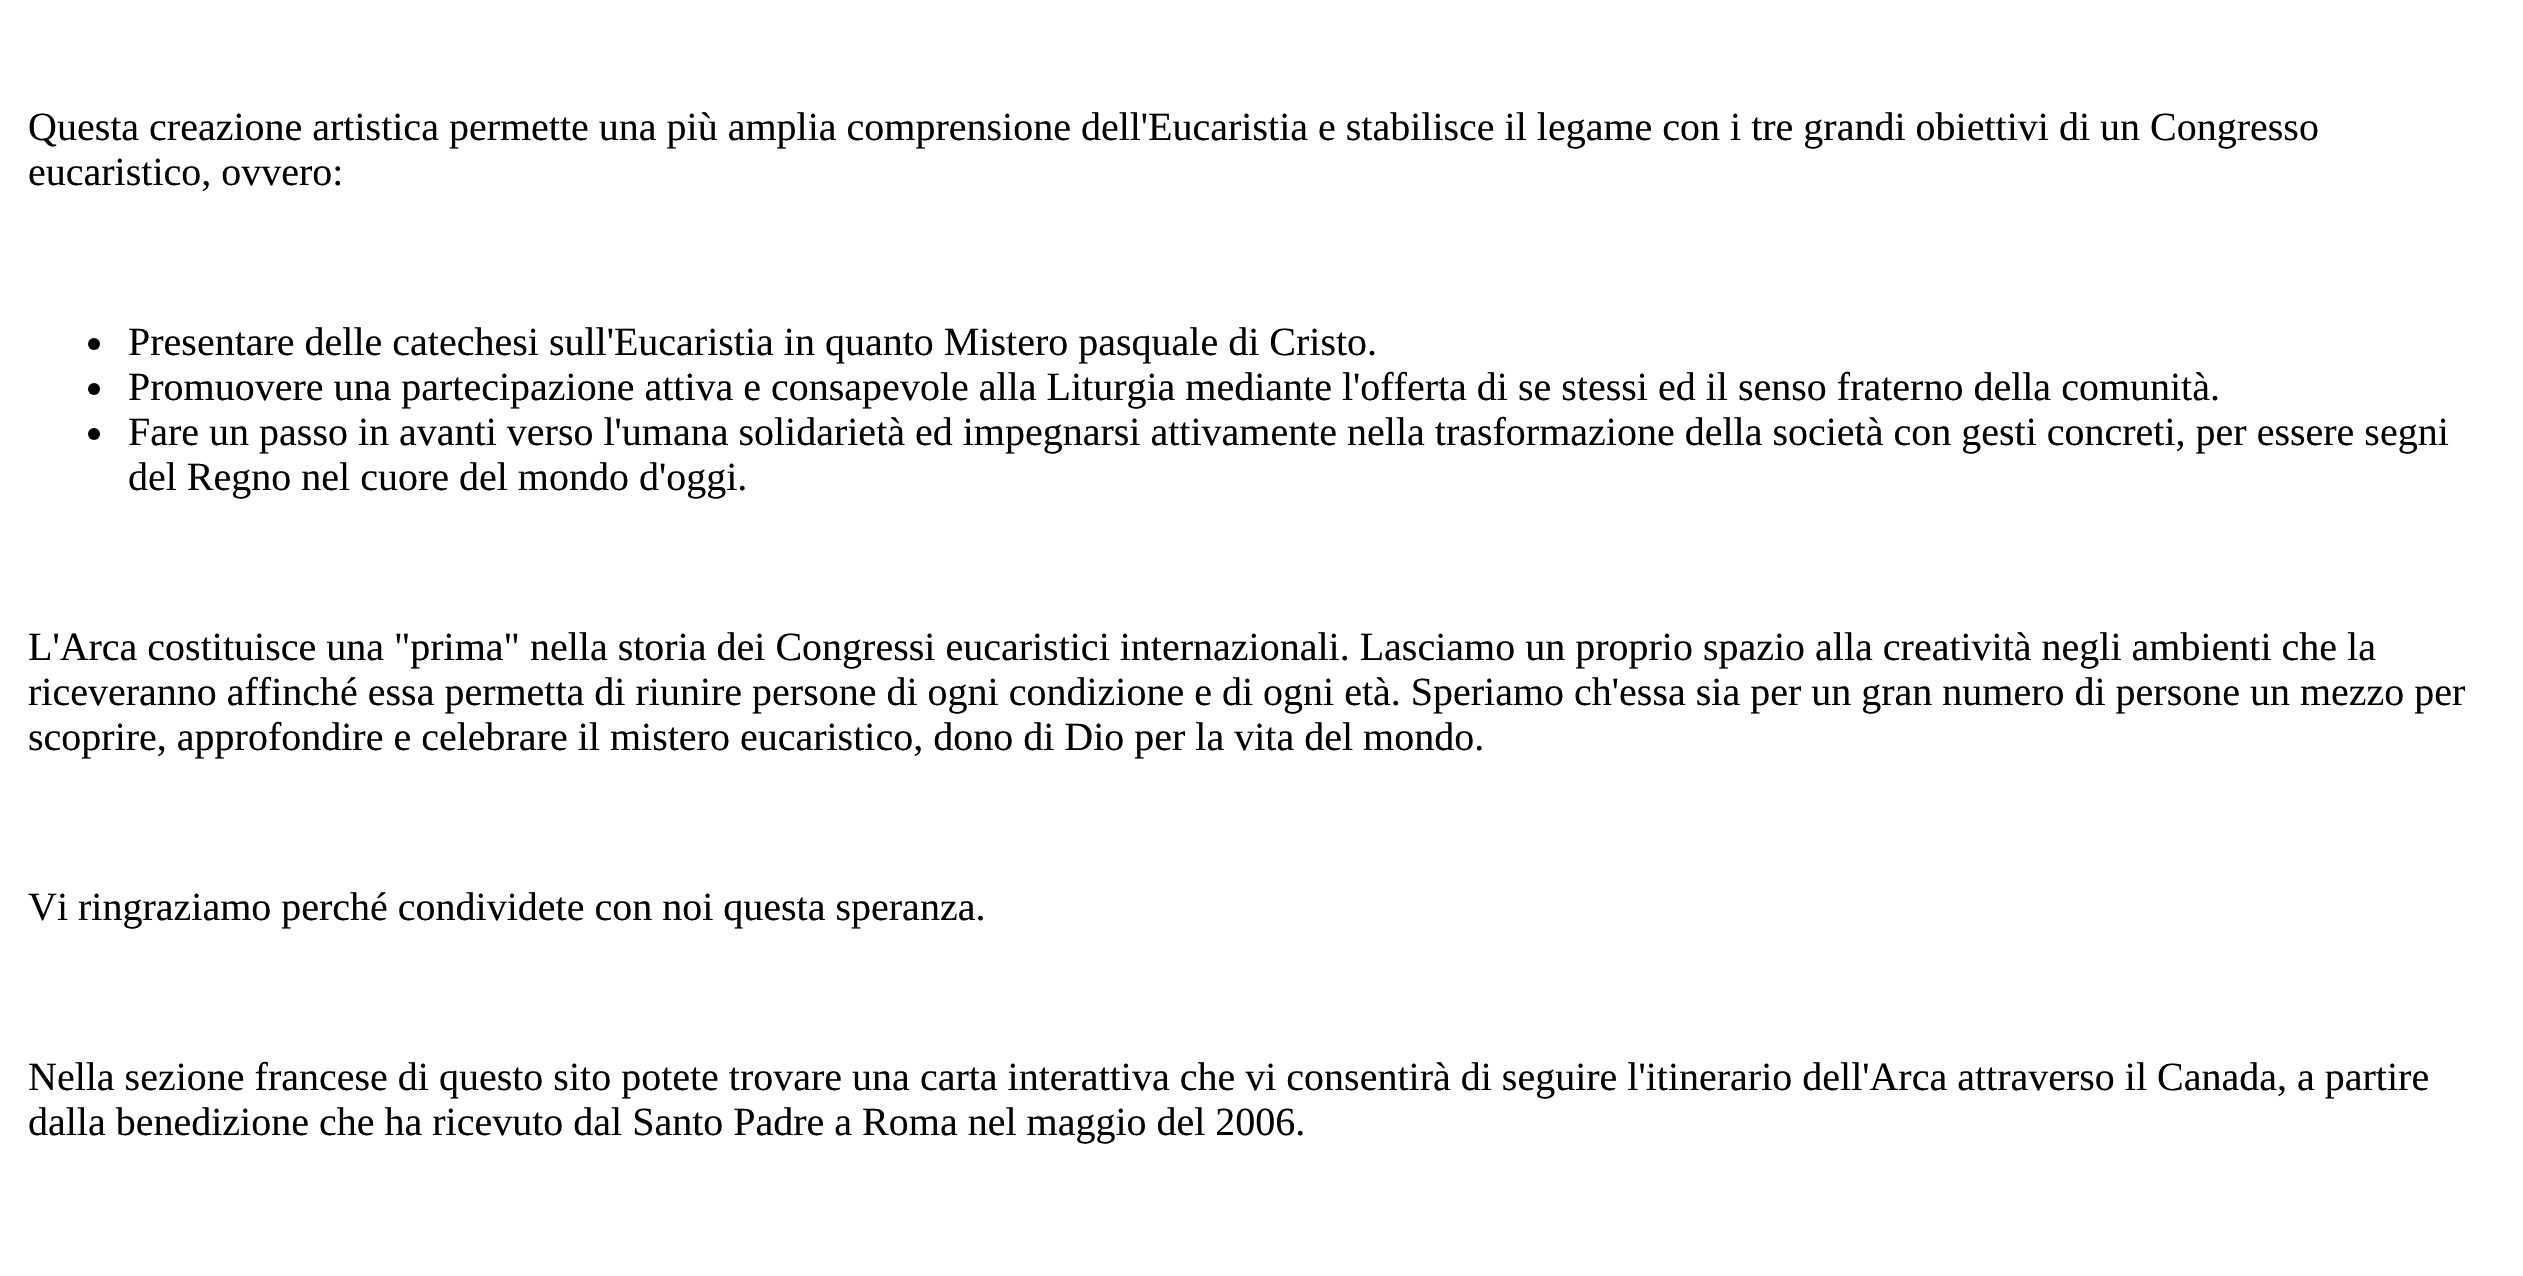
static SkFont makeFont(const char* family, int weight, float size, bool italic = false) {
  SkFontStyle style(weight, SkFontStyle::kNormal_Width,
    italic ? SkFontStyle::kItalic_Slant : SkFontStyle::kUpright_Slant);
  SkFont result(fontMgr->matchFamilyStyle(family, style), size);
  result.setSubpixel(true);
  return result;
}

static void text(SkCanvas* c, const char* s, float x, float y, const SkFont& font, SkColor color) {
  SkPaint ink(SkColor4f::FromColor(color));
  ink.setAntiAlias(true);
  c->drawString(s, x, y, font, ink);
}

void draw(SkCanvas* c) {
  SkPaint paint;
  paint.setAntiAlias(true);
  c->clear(0xffffffff);
  SkFont face1 = makeFont("Liberation Serif", 400, 40);
  text(c, "Questa creazione artistica permette una più amplia comprensione dell'Eucaristia e stabilisce il legame con i tre grandi obiettivi di un Congresso", 28, 140, face1, 0xff000000);
  text(c, "eucaristico, ovvero:", 28, 185, face1, 0xff000000);
  paint.setColor(0xff000000);
  c->drawCircle(94, 344, 6, paint);
  text(c, "Presentare delle catechesi sull'Eucaristia in quanto Mistero pasquale di Cristo.", 128, 355, face1, 0xff000000);
  c->drawCircle(94, 389, 6, paint);
  text(c, "Promuovere una partecipazione attiva e consapevole alla Liturgia mediante l'offerta di se stessi ed il senso fraterno della comunità.", 128, 400, face1, 0xff000000);
  c->drawCircle(94, 434, 6, paint);
  text(c, "Fare un passo in avanti verso l'umana solidarietà ed impegnarsi attivamente nella trasformazione della società con gesti concreti, per essere segni", 128, 445, face1, 0xff000000);
  text(c, "del Regno nel cuore del mondo d'oggi.", 128, 490, face1, 0xff000000);
  text(c, "L'Arca costituisce una \"prima\" nella storia dei Congressi eucaristici internazionali. Lasciamo un proprio spazio alla creatività negli ambienti che la", 28, 660, face1, 0xff000000);
  text(c, "riceveranno affinché essa permetta di riunire persone di ogni condizione e di ogni età. Speriamo ch'essa sia per un gran numero di persone un mezzo per", 28, 705, face1, 0xff000000);
  text(c, "scoprire, approfondire e celebrare il mistero eucaristico, dono di Dio per la vita del mondo.", 28, 750, face1, 0xff000000);
  text(c, "Vi ringraziamo perché condividete con noi questa speranza.", 28, 920, face1, 0xff000000);
  text(c, "Nella sezione francese di questo sito potete trovare una carta interattiva che vi consentirà di seguire l'itinerario dell'Arca attraverso il Canada, a partire", 28, 1090, face1, 0xff000000);
  text(c, "dalla benedizione che ha ricevuto dal Santo Padre a Roma nel maggio del 2006.", 28, 1135, face1, 0xff000000);
}
